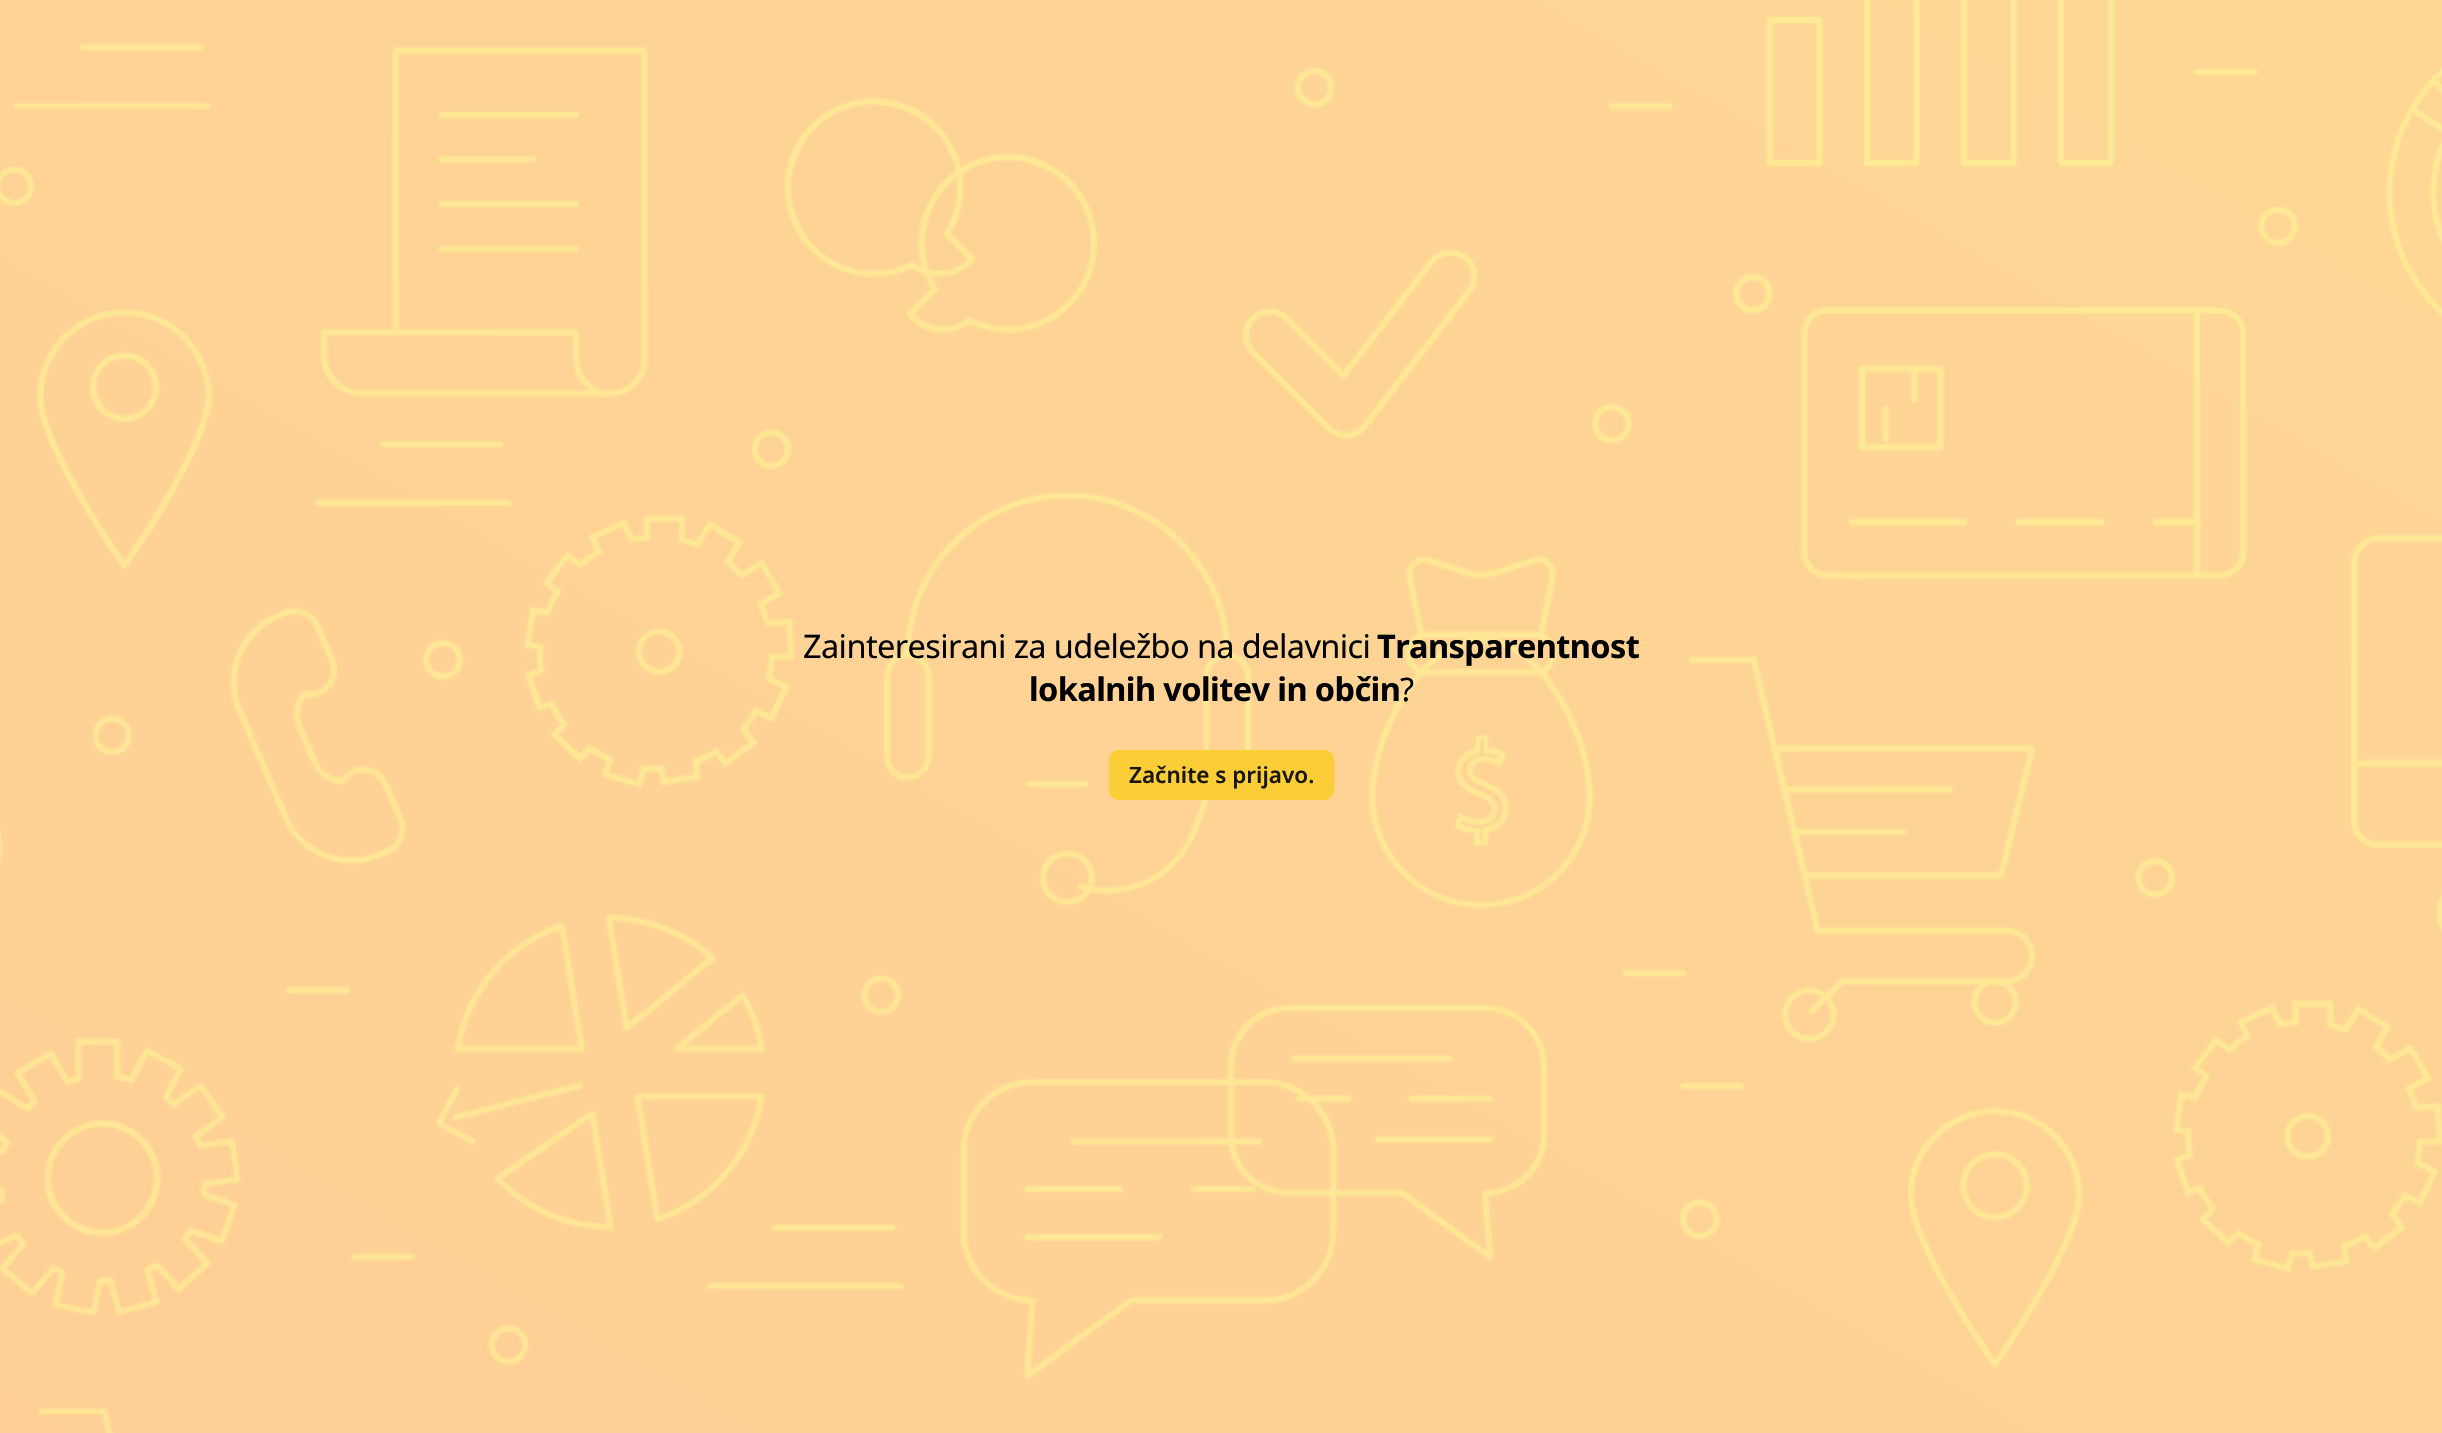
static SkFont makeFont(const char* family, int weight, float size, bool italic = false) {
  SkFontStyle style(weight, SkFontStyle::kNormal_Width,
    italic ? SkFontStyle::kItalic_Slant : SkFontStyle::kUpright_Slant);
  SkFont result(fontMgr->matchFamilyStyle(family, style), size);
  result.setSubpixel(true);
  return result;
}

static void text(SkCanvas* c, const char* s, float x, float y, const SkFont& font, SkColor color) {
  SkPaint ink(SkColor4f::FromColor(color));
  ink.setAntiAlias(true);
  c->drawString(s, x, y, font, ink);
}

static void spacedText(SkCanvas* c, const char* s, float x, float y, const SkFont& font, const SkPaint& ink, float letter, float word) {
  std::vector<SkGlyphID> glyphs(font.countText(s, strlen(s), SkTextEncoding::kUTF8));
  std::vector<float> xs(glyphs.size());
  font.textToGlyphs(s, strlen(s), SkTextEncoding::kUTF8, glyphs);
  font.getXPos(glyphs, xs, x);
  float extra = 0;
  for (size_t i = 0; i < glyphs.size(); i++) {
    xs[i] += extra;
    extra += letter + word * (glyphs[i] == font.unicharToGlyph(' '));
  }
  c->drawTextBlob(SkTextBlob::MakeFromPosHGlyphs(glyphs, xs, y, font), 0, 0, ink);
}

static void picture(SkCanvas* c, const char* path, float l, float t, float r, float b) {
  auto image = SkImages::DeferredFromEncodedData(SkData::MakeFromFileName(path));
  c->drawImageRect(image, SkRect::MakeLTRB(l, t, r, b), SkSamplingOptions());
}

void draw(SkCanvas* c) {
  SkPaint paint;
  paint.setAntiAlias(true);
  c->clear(0xffffffff);
  picture(c, "img_01.png", 0, 0, 2442, 1433);
  SkFont face1 = makeFont("Noto Sans", 400, 32.5f);
  paint.setColor(0xff000000);
  spacedText(c, "Zainteresirani za udeležbo na delavnici", 803, 658, face1, paint, -0.6f, 0);
  SkFont face2 = makeFont("Noto Sans", 700, 32.5f);
  spacedText(c, "Transparentnost", 1377, 658, face2, paint, -0.6f, 0);
  spacedText(c, "lokalnih volitev in občin", 1029, 701, face2, paint, -0.6f, 0);
  spacedText(c, "?", 1400, 701, face1, paint, -0.6f, 0);
  paint.setStyle(SkPaint::kStroke_Style);
  paint.setStrokeWidth(1);
  paint.setColor(0xfffbce37);
  c->drawRoundRect(SkRect::MakeLTRB(1109.5f, 750.5f, 1333.5f, 799.5f), 9.5f, 9.5f, paint);
  paint.setStyle(SkPaint::kFill_Style);
  paint.setMaskFilter(SkMaskFilter::MakeBlur(kNormal_SkBlurStyle, 0.5f));
  c->drawRoundRect(SkRect::MakeLTRB(1109, 750, 1334, 800), 10, 10, paint);
  paint.setMaskFilter(nullptr);
  SkFont face3 = makeFont("Noto Sans", 600, 22.5f);
  text(c, "Začnite s prijavo.", 1129, 783, face3, 0xff1a1606);
}
